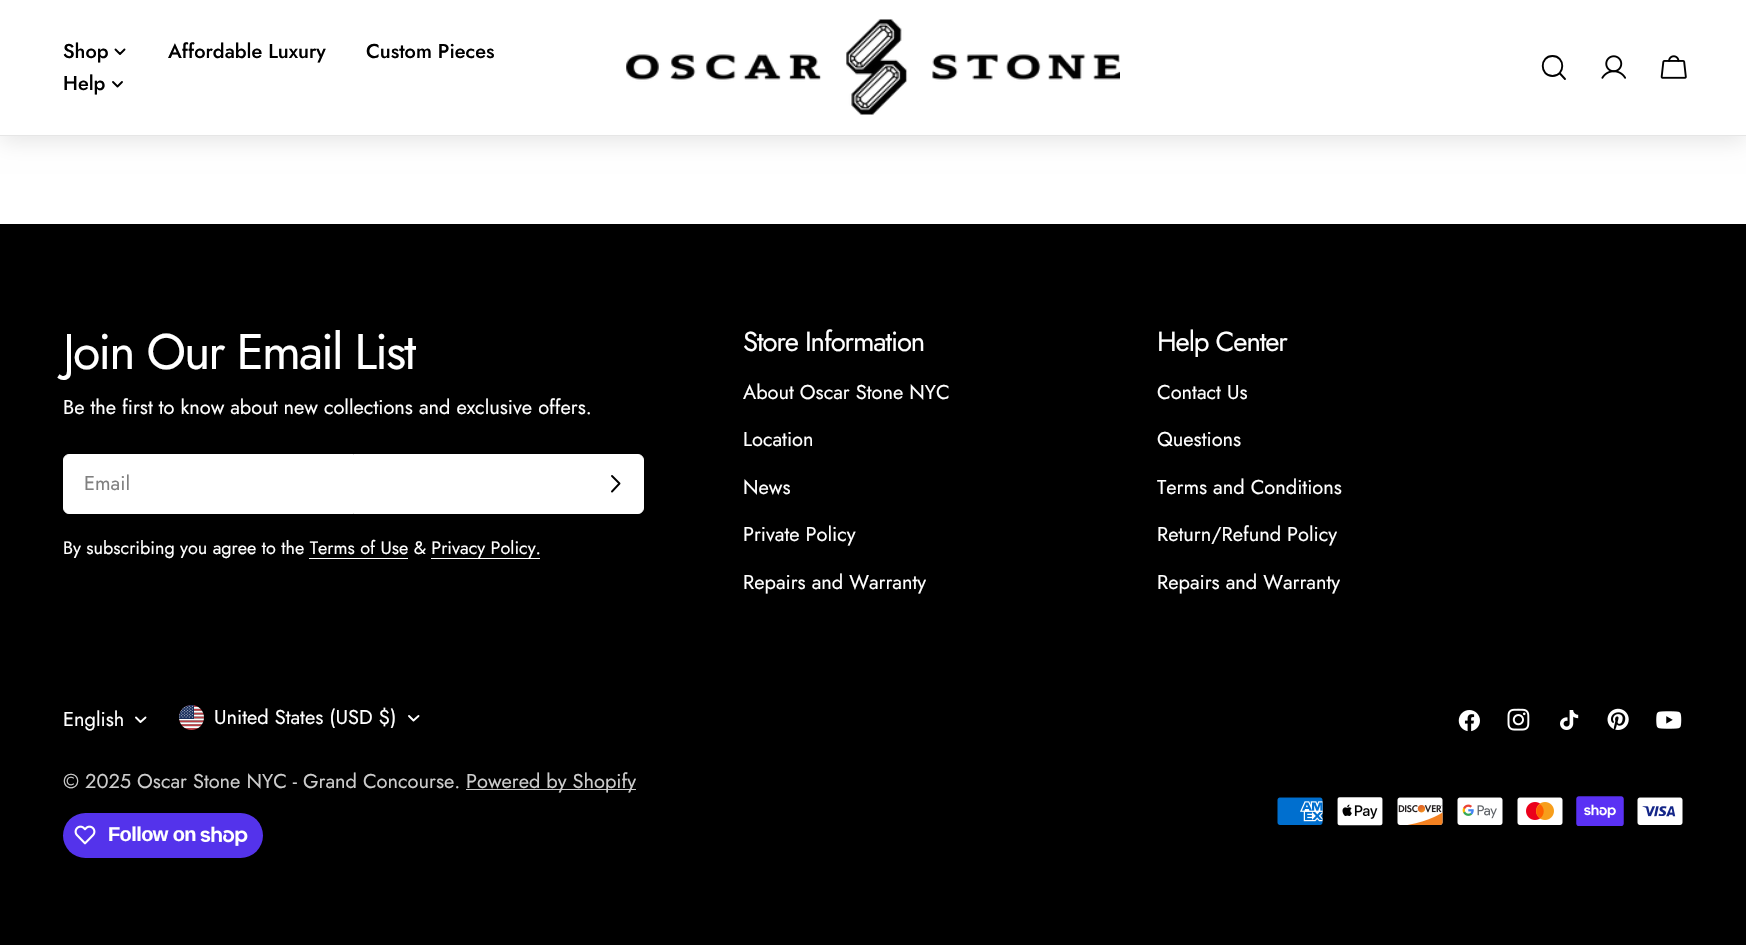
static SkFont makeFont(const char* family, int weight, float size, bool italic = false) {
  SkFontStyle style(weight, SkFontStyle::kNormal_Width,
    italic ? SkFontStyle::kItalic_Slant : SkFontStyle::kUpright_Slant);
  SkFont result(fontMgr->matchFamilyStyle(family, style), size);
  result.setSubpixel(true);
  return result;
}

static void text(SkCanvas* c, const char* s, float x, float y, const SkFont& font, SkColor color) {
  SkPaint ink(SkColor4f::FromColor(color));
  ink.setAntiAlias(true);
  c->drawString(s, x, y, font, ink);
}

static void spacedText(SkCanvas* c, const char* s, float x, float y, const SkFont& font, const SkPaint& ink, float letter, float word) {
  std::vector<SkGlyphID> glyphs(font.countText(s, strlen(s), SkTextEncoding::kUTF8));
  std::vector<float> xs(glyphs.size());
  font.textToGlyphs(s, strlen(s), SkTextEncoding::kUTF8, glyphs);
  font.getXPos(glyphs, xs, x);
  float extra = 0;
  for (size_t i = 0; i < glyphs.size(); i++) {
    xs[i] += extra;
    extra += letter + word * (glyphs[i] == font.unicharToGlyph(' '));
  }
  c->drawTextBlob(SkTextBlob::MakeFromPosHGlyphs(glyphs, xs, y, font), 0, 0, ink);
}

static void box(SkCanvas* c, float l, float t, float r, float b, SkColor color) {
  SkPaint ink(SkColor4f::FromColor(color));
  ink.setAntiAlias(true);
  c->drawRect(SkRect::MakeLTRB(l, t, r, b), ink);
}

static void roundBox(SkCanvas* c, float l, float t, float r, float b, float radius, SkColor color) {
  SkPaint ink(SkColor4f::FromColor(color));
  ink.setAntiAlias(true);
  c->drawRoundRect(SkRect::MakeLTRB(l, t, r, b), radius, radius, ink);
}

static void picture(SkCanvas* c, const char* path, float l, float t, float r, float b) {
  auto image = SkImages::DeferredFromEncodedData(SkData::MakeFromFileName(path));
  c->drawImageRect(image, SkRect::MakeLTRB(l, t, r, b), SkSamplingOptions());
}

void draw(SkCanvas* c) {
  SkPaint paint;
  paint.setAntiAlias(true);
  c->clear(0xffffffff);
  paint.setColor(0x1a000000);
  paint.setMaskFilter(SkMaskFilter::MakeBlur(kNormal_SkBlurStyle, 11));
  c->drawRect(SkRect::MakeLTRB(0, 5, 1746, 141), paint);
  paint.setMaskFilter(nullptr);
  box(c, 0, 135, 1746, 136, 0xffe6e6e6);
  box(c, 0, 0, 1746, 135, 0xffffffff);
  SkFont face1 = makeFont("Jost", 500, 20);
  text(c, "Shop", 63, 58, face1, 0xff000000);
  paint.setStyle(SkPaint::kStroke_Style);
  paint.setStrokeWidth(1.9f);
  paint.setStrokeCap(SkPaint::kRound_Cap);
  paint.setStrokeJoin(SkPaint::kRound_Join);
  paint.setColor(0xff000000);
  c->drawPath(SkPathBuilder().moveTo(124.5f, 49.5f).lineTo(120, 54).lineTo(115.5f, 49.5f).detach(), paint);
  text(c, "Affordable Luxury", 168, 58, face1, 0xff000000);
  text(c, "Custom Pieces", 366, 58, face1, 0xff000000);
  text(c, "Help", 63, 90, face1, 0xff000000);
  c->drawPath(SkPathBuilder().moveTo(122, 82).lineTo(117.5f, 86.5f).lineTo(113, 82).detach(), paint);
  picture(c, "img_01.png", 626, 19, 1120, 115);
  c->drawPath(SkPathBuilder().moveTo(1552.5f, 76).cubicTo(1565.5f, 76, 1565.5f, 56, 1552.5f, 56).cubicTo(1539.5f, 56, 1539.5f, 76, 1552.5f, 76).close().moveTo(1559.5f, 73).lineTo(1565, 79).detach(), paint);
  picture(c, "img_02.png", 1601, 55, 1626, 79);
  picture(c, "img_03.png", 1660, 55, 1687, 79);
  box(c, 0, 224, 1746, 945, 0xff000000);
  SkFont face2 = makeFont("Jost", 400, 50);
  paint.setStyle(SkPaint::kFill_Style);
  paint.setColor(0xffffffff);
  spacedText(c, "Join Our Email List", 63, 369, face2, paint, -2, 0);
  SkFont face3 = makeFont("Jost", 400, 20);
  text(c, "Be the first to know about new collections and exclusive offers.", 63, 414, face3, 0xffffffff);
  c->drawRoundRect(SkRect::MakeLTRB(63.5f, 454.5f, 643.5f, 513.5f), 5.5f, 5.5f, paint);
  paint.setStyle(SkPaint::kStroke_Style);
  paint.setStrokeWidth(1);
  paint.setStrokeCap(SkPaint::kButt_Cap);
  paint.setStrokeJoin(SkPaint::kMiter_Join);
  c->drawRoundRect(SkRect::MakeLTRB(63.5f, 454.5f, 643.5f, 513.5f), 5.5f, 5.5f, paint);
  text(c, "Email", 84, 490, face3, 0xff808080);
  paint.setStrokeWidth(1.9f);
  paint.setStrokeCap(SkPaint::kRound_Cap);
  paint.setStrokeJoin(SkPaint::kRound_Join);
  paint.setColor(0xff000000);
  c->drawPath(SkPathBuilder().moveTo(612, 476).lineTo(619.5f, 483.5f).lineTo(612, 491.5f).detach(), paint);
  SkFont face4 = makeFont("Jost", 400, 18);
  text(c, "By subscribing you agree to the Terms of Use & Privacy Policy.", 63, 554, face4, 0xffffffff);
  box(c, 309, 558, 408, 559, 0xffffffff);
  box(c, 431, 558, 540, 559, 0xffffffff);
  SkFont face5 = makeFont("Jost", 400, 27.5f);
  paint.setStyle(SkPaint::kFill_Style);
  paint.setColor(0xffffffff);
  spacedText(c, "Store Information", 743, 351, face5, paint, -1.1f, 0);
  text(c, "About Oscar Stone NYC", 743, 399, face3, 0xffffffff);
  text(c, "Location", 743, 446, face3, 0xffffffff);
  text(c, "News", 743, 494, face3, 0xffffffff);
  text(c, "Private Policy", 743, 541, face3, 0xffffffff);
  text(c, "Repairs and Warranty", 743, 589, face3, 0xffffffff);
  spacedText(c, "Help Center", 1157, 351, face5, paint, -1.1f, 0);
  text(c, "Contact Us", 1157, 399, face3, 0xffffffff);
  text(c, "Questions", 1157, 446, face3, 0xffffffff);
  text(c, "Terms and Conditions", 1157, 494, face3, 0xffffffff);
  text(c, "Return/Refund Policy", 1157, 541, face3, 0xffffffff);
  text(c, "Repairs and Warranty", 1157, 589, face3, 0xffffffff);
  text(c, "English", 63, 726, face3, 0xffffffff);
  paint.setStyle(SkPaint::kStroke_Style);
  c->drawPath(SkPathBuilder().moveTo(145.5f, 717.5f).lineTo(140.5f, 722).lineTo(136, 717.5f).detach(), paint);
  picture(c, "img_04.png", 179, 705, 204, 730);
  text(c, "United States (USD $)", 214, 724, face3, 0xffffffff);
  c->drawPath(SkPathBuilder().moveTo(418.5f, 716).lineTo(413.5f, 720.5f).lineTo(409, 716).detach(), paint);
  picture(c, "img_05.png", 1458, 710, 1480, 732);
  picture(c, "img_06.png", 1507, 708, 1530, 731);
  picture(c, "img_07.png", 1560, 710, 1579, 730);
  picture(c, "img_08.png", 1607, 708, 1629, 730);
  picture(c, "img_09.png", 1656, 711, 1682, 729);
  text(c, "© 2025 Oscar Stone NYC - Grand Concourse.", 63, 788, face3, 0xffcccccc);
  box(c, 466, 789, 636, 790, 0xffcccccc);
  text(c, "Powered by Shopify", 466, 788, face3, 0xffcccccc);
  roundBox(c, 63, 813, 263, 858, 22.5f, 0xff5433eb);
  picture(c, "img_10.png", 74, 825, 96, 845);
  SkFont face6 = makeFont("Liberation Sans", 700, 20);
  paint.setStyle(SkPaint::kFill_Style);
  spacedText(c, "Follow on", 108, 841, face6, paint, -0.6f, 0);
  picture(c, "img_11.png", 200, 826, 248, 846);
  picture(c, "img_12.png", 1277, 797, 1323, 825);
  picture(c, "img_13.png", 1337, 797, 1383, 826);
  picture(c, "img_14.png", 1397, 797, 1443, 825);
  picture(c, "img_15.png", 1457, 797, 1503, 825);
  picture(c, "img_16.png", 1517, 797, 1563, 825);
  picture(c, "img_17.png", 1576, 796, 1624, 826);
  picture(c, "img_18.png", 1637, 797, 1683, 825);
}
